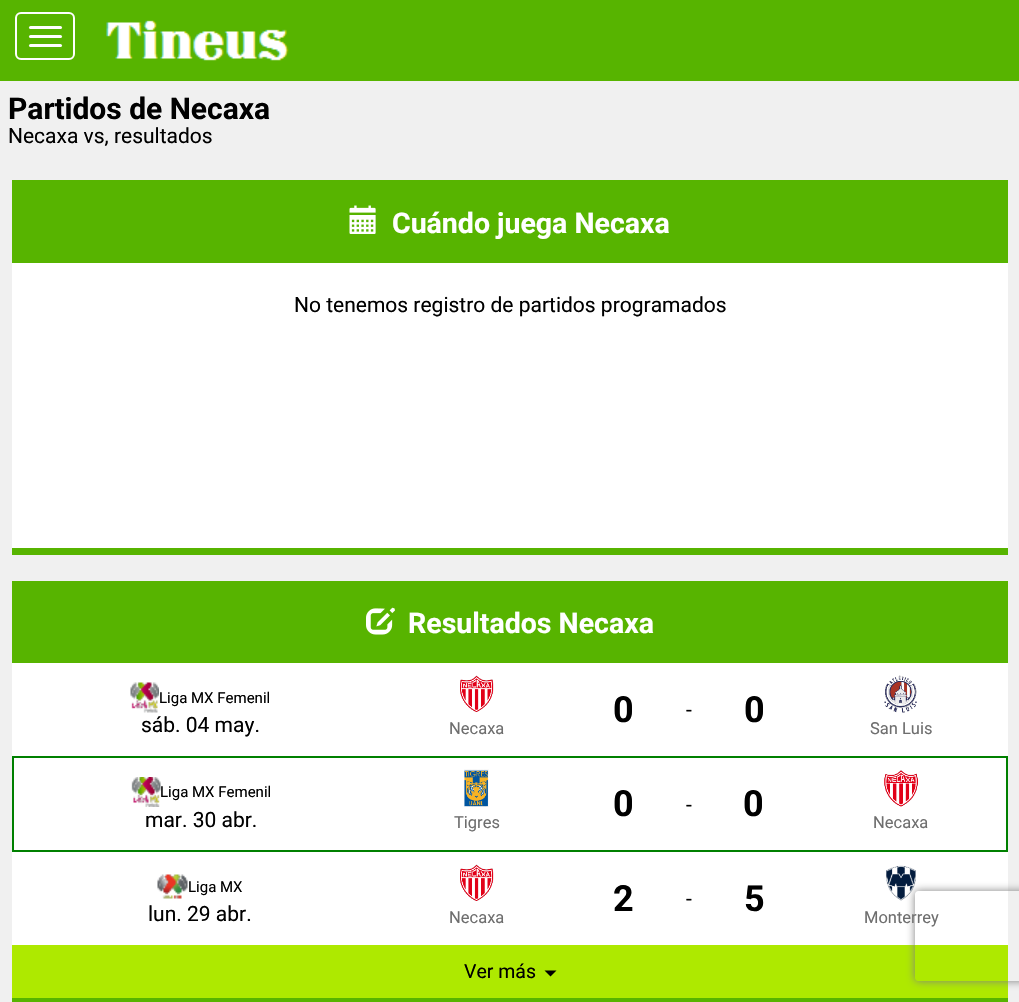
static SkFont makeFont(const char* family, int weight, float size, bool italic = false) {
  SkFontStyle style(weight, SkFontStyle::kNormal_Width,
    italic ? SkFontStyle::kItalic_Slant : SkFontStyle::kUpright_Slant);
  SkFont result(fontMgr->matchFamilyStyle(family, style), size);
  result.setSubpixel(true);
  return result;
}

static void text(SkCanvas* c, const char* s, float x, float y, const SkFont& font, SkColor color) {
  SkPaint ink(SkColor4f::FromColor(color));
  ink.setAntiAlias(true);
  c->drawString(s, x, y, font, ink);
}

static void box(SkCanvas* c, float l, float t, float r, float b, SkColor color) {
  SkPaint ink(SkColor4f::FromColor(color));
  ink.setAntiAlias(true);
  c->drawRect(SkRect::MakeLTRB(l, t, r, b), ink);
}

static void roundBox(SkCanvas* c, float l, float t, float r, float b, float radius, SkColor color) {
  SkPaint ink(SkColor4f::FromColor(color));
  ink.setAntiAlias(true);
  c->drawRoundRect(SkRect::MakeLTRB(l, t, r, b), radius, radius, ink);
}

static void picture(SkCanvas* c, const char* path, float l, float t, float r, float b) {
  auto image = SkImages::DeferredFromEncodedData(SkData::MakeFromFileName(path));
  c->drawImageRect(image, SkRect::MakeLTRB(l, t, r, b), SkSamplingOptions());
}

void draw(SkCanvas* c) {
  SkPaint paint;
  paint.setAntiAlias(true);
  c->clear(0xfff0f0f0);
  box(c, 0, 0, 1019, 81, 0xff57b400);
  paint.setStyle(SkPaint::kStroke_Style);
  paint.setStrokeWidth(2);
  paint.setColor(0xffffffff);
  c->drawRoundRect(SkRect::MakeLTRB(16, 13, 74, 59), 5, 5, paint);
  roundBox(c, 29, 26, 62, 29, 1.5f, 0xffffffff);
  roundBox(c, 29, 35, 62, 38, 1.5f, 0xffffffff);
  roundBox(c, 29, 44, 62, 47, 1.5f, 0xffffffff);
  picture(c, "img_01.png", 106, 20, 289, 61);
  SkFont face1 = makeFont("Roboto", 700, 30);
  text(c, "Partidos de Necaxa", 8, 119, face1, 0xff000000);
  SkFont face2 = makeFont("Roboto", 400, 21);
  text(c, "Necaxa vs, resultados", 8, 143, face2, 0xff000000);
  box(c, 12, 263, 1008, 548, 0xffffffff);
  box(c, 12, 548, 1008, 555, 0xff57b400);
  box(c, 12, 180, 1008, 263, 0xff57b400);
  picture(c, "img_02.png", 349, 205, 376, 234);
  SkFont face3 = makeFont("Roboto", 700, 28.5f);
  text(c, "Cuándo juega Necaxa", 392, 233, face3, 0xffffffff);
  text(c, "No tenemos registro de partidos programados", 294, 312, face2, 0xff000000);
  box(c, 12, 663, 1008, 945, 0xffffffff);
  box(c, 12, 998, 1008, 1002, 0xff57b400);
  box(c, 12, 581, 1008, 663, 0xff57b400);
  picture(c, "img_03.png", 366, 607, 395, 635);
  text(c, "Resultados Necaxa", 408, 633, face3, 0xffffffff);
  picture(c, "img_04.png", 130, 682, 159, 713);
  SkFont face4 = makeFont("Roboto", 400, 15);
  text(c, "Liga MX Femenil", 159, 703, face4, 0xff000000);
  text(c, "sáb. 04 may.", 141, 732, face2, 0xff000000);
  SkFont face5 = makeFont("Roboto", 700, 36);
  text(c, "0", 613, 722, face5, 0xff000000);
  text(c, "-", 686, 717, face2, 0xff000000);
  text(c, "0", 744, 722, face5, 0xff000000);
  picture(c, "img_05.png", 460, 675, 494, 712);
  SkFont face6 = makeFont("Roboto", 400, 16.5f);
  text(c, "Necaxa", 449, 734, face6, 0xff6e6e6e);
  picture(c, "img_06.png", 884, 675, 917, 713);
  text(c, "San Luis", 870, 734, face6, 0xff6e6e6e);
  paint.setColor(0xff008000);
  c->drawRect(SkRect::MakeLTRB(13, 757, 1007, 851), paint);
  picture(c, "img_07.png", 131, 777, 161, 807);
  text(c, "Liga MX Femenil", 160, 797, face4, 0xff000000);
  text(c, "mar. 30 abr.", 145, 827, face2, 0xff000000);
  text(c, "0", 613, 816, face5, 0xff000000);
  text(c, "-", 686, 812, face2, 0xff000000);
  text(c, "0", 743, 816, face5, 0xff000000);
  picture(c, "img_08.png", 464, 769, 489, 807);
  text(c, "Tigres", 454, 828, face6, 0xff6e6e6e);
  picture(c, "img_09.png", 884, 770, 918, 807);
  text(c, "Necaxa", 873, 828, face6, 0xff6e6e6e);
  picture(c, "img_10.png", 157, 874, 188, 899);
  text(c, "Liga MX", 188, 892, face4, 0xff000000);
  text(c, "lun. 29 abr.", 148, 921, face2, 0xff000000);
  text(c, "2", 613, 911, face5, 0xff000000);
  text(c, "-", 686, 906, face2, 0xff000000);
  text(c, "5", 744, 911, face5, 0xff000000);
  picture(c, "img_05.png", 460, 864, 494, 901);
  text(c, "Necaxa", 449, 923, face6, 0xff6e6e6e);
  picture(c, "img_11.png", 886, 865, 916, 901);
  text(c, "Monterrey", 864, 923, face6, 0xff6e6e6e);
  box(c, 12, 945, 1008, 998, 0xffaee900);
  SkFont face7 = makeFont("Roboto", 400, 19.5f);
  text(c, "Ver más", 464, 978, face7, 0xff000000);
  paint.setStyle(SkPaint::kFill_Style);
  paint.setColor(0xff000000);
  c->drawPath(SkPathBuilder().moveTo(544.5f, 970.5f).lineTo(556.5f, 970.5f).lineTo(550.5f, 976.5f).close().detach(), paint);
  c->save();
  c->clipPath(SkPathBuilder(SkPathFillType::kEvenOdd).moveTo(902, 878).lineTo(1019, 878).lineTo(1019, 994).lineTo(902, 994).close().moveTo(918, 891).lineTo(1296, 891).cubicTo(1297.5f, 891, 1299, 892.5f, 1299, 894).lineTo(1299, 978).cubicTo(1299, 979.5f, 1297.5f, 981, 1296, 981).lineTo(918, 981).cubicTo(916.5f, 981, 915, 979.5f, 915, 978).lineTo(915, 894).cubicTo(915, 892.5f, 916.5f, 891, 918, 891).close().detach(), true);
  paint.setColor(0xff808080);
  paint.setMaskFilter(SkMaskFilter::MakeBlur(kNormal_SkBlurStyle, 4));
  c->drawRoundRect(SkRect::MakeLTRB(915, 891, 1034, 981), 3, 3, paint);
  paint.setMaskFilter(nullptr);
  c->restore();
}
